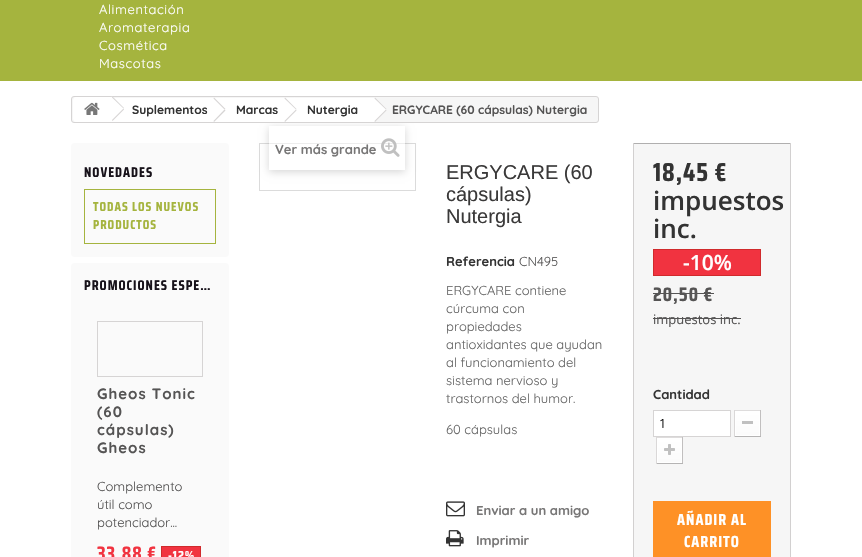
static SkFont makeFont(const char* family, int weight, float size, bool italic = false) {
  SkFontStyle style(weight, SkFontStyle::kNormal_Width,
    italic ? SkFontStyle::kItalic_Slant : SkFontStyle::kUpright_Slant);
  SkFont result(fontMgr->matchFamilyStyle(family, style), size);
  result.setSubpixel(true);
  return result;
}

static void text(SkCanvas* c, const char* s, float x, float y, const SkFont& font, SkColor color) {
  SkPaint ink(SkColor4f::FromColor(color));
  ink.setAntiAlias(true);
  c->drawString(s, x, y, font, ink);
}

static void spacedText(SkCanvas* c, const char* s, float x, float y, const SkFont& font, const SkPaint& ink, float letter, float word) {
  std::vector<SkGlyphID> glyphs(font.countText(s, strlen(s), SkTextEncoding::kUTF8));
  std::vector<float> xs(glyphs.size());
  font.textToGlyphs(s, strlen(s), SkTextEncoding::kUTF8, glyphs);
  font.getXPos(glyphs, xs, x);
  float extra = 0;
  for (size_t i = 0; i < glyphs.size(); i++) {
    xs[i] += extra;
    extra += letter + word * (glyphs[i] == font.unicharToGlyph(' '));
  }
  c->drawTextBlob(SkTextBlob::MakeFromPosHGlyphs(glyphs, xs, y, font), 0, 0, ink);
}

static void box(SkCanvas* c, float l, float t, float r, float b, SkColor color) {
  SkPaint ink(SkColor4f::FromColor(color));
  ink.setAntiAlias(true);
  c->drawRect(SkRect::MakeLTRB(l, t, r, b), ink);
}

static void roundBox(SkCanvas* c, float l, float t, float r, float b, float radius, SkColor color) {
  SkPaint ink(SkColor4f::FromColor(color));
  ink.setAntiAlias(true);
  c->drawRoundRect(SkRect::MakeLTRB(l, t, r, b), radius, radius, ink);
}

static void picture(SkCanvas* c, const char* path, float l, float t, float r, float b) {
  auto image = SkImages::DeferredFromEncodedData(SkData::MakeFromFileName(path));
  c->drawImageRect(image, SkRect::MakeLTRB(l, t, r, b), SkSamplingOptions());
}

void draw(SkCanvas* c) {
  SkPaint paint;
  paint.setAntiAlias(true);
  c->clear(0xffffffff);
  box(c, 0, 0, 862, 81, 0xffa5b43e);
  SkFont face1 = makeFont("Quicksand", 400, 13);
  paint.setColor(0xffffffff);
  spacedText(c, "Alimentación", 99, 14, face1, paint, 0.6f, 0);
  spacedText(c, "Aromaterapia", 99, 32, face1, paint, 0.6f, 0);
  spacedText(c, "Cosmética", 99, 50, face1, paint, 0.6f, 0);
  spacedText(c, "Mascotas", 99, 68, face1, paint, 0.6f, 0);
  paint.setStyle(SkPaint::kStroke_Style);
  paint.setStrokeWidth(1);
  paint.setColor(0xffdbdbdb);
  c->drawRect(SkRect::MakeLTRB(259.5f, 143.5f, 415.5f, 190.5f), paint);
  c->save();
  c->clipPath(SkPathBuilder(SkPathFillType::kEvenOdd).moveTo(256, 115).lineTo(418, 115).lineTo(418, 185).lineTo(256, 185).close().moveTo(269, 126).lineTo(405, 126).lineTo(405, 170).lineTo(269, 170).close().detach(), true);
  paint.setStyle(SkPaint::kFill_Style);
  paint.setColor(0x29000000);
  paint.setMaskFilter(SkMaskFilter::MakeBlur(kNormal_SkBlurStyle, 4));
  c->drawRect(SkRect::MakeLTRB(269, 128, 405, 172), paint);
  paint.setMaskFilter(nullptr);
  c->restore();
  paint.setColor(0xfff6f6f6);
  c->drawRoundRect(SkRect::MakeLTRB(71.5f, 96.5f, 598.5f, 122.5f), 2.5f, 2.5f, paint);
  paint.setStyle(SkPaint::kStroke_Style);
  paint.setColor(0xffd6d4d4);
  c->drawRoundRect(SkRect::MakeLTRB(71.5f, 96.5f, 598.5f, 122.5f), 2.5f, 2.5f, paint);
  paint.setStyle(SkPaint::kFill_Style);
  paint.setColor(0xffffffff);
  c->drawPath(SkPathBuilder().moveTo(76, 97).lineTo(111, 97).lineTo(111, 122).lineTo(76, 122).cubicTo(74.5f, 122, 73, 120.5f, 73, 119).lineTo(73, 100).cubicTo(73, 98.5f, 74.5f, 97, 76, 97).close().detach(), paint);
  picture(c, "img_01.png", 84, 102, 100, 115);
  box(c, 111, 98, 214, 122, 0xffffffff);
  c->drawPath(SkPathBuilder().moveTo(113.5f, 97.5f).lineTo(123.5f, 107.5f).cubicTo(124, 108, 124, 109.5f, 123.5f, 110).lineTo(113.5f, 120).cubicTo(112.5f, 121, 111.5f, 121, 110.5f, 120).lineTo(100.5f, 110).cubicTo(100, 109.5f, 100, 108, 100.5f, 107.5f).lineTo(110.5f, 97.5f).cubicTo(111.5f, 96.5f, 112.5f, 96.5f, 113.5f, 97.5f).close().detach(), paint);
  paint.setColor(0xffd6d4d4);
  c->drawPath(SkPathBuilder().moveTo(112.5f, 96.5f).lineTo(124, 108).lineTo(123.5f, 108.5f).lineTo(112, 97.5f).close().detach(), paint);
  c->drawPath(SkPathBuilder().moveTo(123.5f, 108.5f).lineTo(124, 109.5f).lineTo(112.5f, 121).lineTo(112, 120).close().detach(), paint);
  SkFont face2 = makeFont("Quicksand", 700, 12);
  text(c, "Suplementos", 132, 114, face2, 0xff333333);
  paint.setColor(0xffffffff);
  c->drawPath(SkPathBuilder().moveTo(224.5f, 98.5f).lineTo(234.5f, 108.5f).cubicTo(235.5f, 109, 235.5f, 110.5f, 234.5f, 111).lineTo(224.5f, 121).cubicTo(224, 122, 222.5f, 122, 222, 121).lineTo(212, 111).cubicTo(211, 110.5f, 211, 109, 212, 108.5f).lineTo(222, 98.5f).cubicTo(222.5f, 97.5f, 224, 97.5f, 224.5f, 98.5f).close().detach(), paint);
  box(c, 214, 98, 285, 122, 0xffffffff);
  paint.setColor(0xffd6d4d4);
  c->drawPath(SkPathBuilder().moveTo(214, 97.5f).lineTo(225.5f, 109).lineTo(224.5f, 109.5f).lineTo(213.5f, 98.5f).close().detach(), paint);
  c->drawPath(SkPathBuilder().moveTo(224.5f, 109.5f).lineTo(225.5f, 110.5f).lineTo(214, 122).lineTo(213.5f, 121).close().detach(), paint);
  text(c, "Marcas", 236, 114, face2, 0xff333333);
  paint.setColor(0xffffffff);
  c->drawPath(SkPathBuilder().moveTo(296, 98.5f).lineTo(306, 108.5f).cubicTo(306.5f, 109, 306.5f, 110.5f, 306, 111).lineTo(296, 121).cubicTo(295, 122, 294, 122, 293, 121).lineTo(283, 111).cubicTo(282.5f, 110.5f, 282.5f, 109, 283, 108.5f).lineTo(293, 98.5f).cubicTo(294, 97.5f, 295, 97.5f, 296, 98.5f).close().detach(), paint);
  box(c, 285, 98, 374, 122, 0xffffffff);
  paint.setColor(0xffd6d4d4);
  c->drawPath(SkPathBuilder().moveTo(285, 97.5f).lineTo(296.5f, 109).lineTo(296, 109.5f).lineTo(284.5f, 98.5f).close().detach(), paint);
  c->drawPath(SkPathBuilder().moveTo(296, 109.5f).lineTo(296.5f, 110.5f).lineTo(285, 122).lineTo(284.5f, 121).close().detach(), paint);
  text(c, "Nutergia", 307, 114, face2, 0xff333333);
  paint.setColor(0xffffffff);
  c->drawPath(SkPathBuilder().moveTo(376, 98.5f).lineTo(386, 108.5f).cubicTo(386.5f, 109, 386.5f, 110.5f, 386, 111).lineTo(376, 121).cubicTo(375, 122, 374, 122, 373, 121).lineTo(363, 111).cubicTo(362.5f, 110.5f, 362.5f, 109, 363, 108.5f).lineTo(373, 98.5f).cubicTo(374, 97.5f, 375, 97.5f, 376, 98.5f).close().detach(), paint);
  paint.setColor(0xffd6d4d4);
  c->drawPath(SkPathBuilder().moveTo(375, 97.5f).lineTo(386.5f, 109).lineTo(386, 109.5f).lineTo(374.5f, 98.5f).close().detach(), paint);
  c->drawPath(SkPathBuilder().moveTo(386, 109.5f).lineTo(386.5f, 110.5f).lineTo(375, 122).lineTo(374.5f, 121).close().detach(), paint);
  text(c, "ERGYCARE (60 cápsulas) Nutergia", 392, 114, face2, 0xff555454);
  roundBox(c, 71, 143, 229, 257, 4, 0xfffafafa);
  SkFont face3 = makeFont("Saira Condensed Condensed", 700, 14);
  paint.setColor(0xff17121a);
  spacedText(c, "NOVEDADES", 84, 177, face3, paint, 1, 0);
  paint.setStyle(SkPaint::kStroke_Style);
  paint.setColor(0xffa5b43e);
  c->drawRect(SkRect::MakeLTRB(84.5f, 189.5f, 215.5f, 243.5f), paint);
  SkFont face4 = makeFont("Saira Condensed Condensed", 700, 13);
  paint.setStyle(SkPaint::kFill_Style);
  spacedText(c, "TODAS LOS NUEVOS", 93, 211, face4, paint, 1, 0);
  spacedText(c, "PRODUCTOS", 93, 229, face4, paint, 1, 0);
  roundBox(c, 71, 263, 229, 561, 4, 0xfffafafa);
  paint.setColor(0xff17121a);
  spacedText(c, "PROMOCIONES ESPE…", 84, 290, face3, paint, 1, 0);
  paint.setStyle(SkPaint::kStroke_Style);
  paint.setColor(0xffd6d4d4);
  c->drawRect(SkRect::MakeLTRB(97.5f, 321.5f, 202.5f, 376.5f), paint);
  SkFont face5 = makeFont("Quicksand", 700, 15);
  paint.setStyle(SkPaint::kFill_Style);
  paint.setColor(0xff555454);
  spacedText(c, "Gheos Tonic", 97, 399, face5, paint, 1, 0);
  spacedText(c, "(60", 97, 417, face5, paint, 1, 0);
  spacedText(c, "cápsulas)", 97, 435, face5, paint, 1, 0);
  spacedText(c, "Gheos", 97, 453, face5, paint, 1, 0);
  text(c, "Complemento", 97, 491, face1, 0xff555454);
  text(c, "útil como", 97, 509, face1, 0xff555454);
  text(c, "potenciador...", 97, 527, face1, 0xff555454);
  SkFont face6 = makeFont("Saira Condensed Condensed", 700, 19.5f);
  paint.setColor(0xfff13340);
  spacedText(c, "33,88 €", 97, 560, face6, paint, 1, 0);
  c->drawRect(SkRect::MakeLTRB(161.5f, 546.5f, 200.5f, 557.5f), paint);
  paint.setStyle(SkPaint::kStroke_Style);
  paint.setColor(0xffd02a2c);
  c->drawRect(SkRect::MakeLTRB(161.5f, 546.5f, 200.5f, 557.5f), paint);
  paint.setStyle(SkPaint::kFill_Style);
  paint.setColor(0xffffffff);
  spacedText(c, "-12%", 168, 560, face4, paint, 1, 0);
  box(c, 269, 143, 405, 144, 0x80ffffff);
  SkFont face7 = makeFont("Quicksand", 700, 13);
  text(c, "Ver más grande", 275, 154, face7, 0xff777676);
  picture(c, "img_02.png", 381, 138, 400, 157);
  SkFont face8 = makeFont("Liberation Sans", 400, 20);
  text(c, "ERGYCARE (60", 446, 179, face8, 0xff3a3939);
  text(c, "cápsulas)", 446, 201, face8, 0xff3a3939);
  text(c, "Nutergia", 446, 223, face8, 0xff3a3939);
  text(c, "Referencia", 446, 266, face7, 0xff333333);
  text(c, "CN495", 519, 266, face1, 0xff555454);
  text(c, "ERGYCARE contiene", 446, 295, face1, 0xff666666);
  text(c, "cúrcuma con", 446, 313, face1, 0xff666666);
  text(c, "propiedades", 446, 331, face1, 0xff666666);
  text(c, "antioxidantes que ayudan", 446, 349, face1, 0xff666666);
  text(c, "al funcionamiento del", 446, 367, face1, 0xff666666);
  text(c, "sistema nervioso y", 446, 385, face1, 0xff666666);
  text(c, "trastornos del humor.", 446, 403, face1, 0xff666666);
  text(c, "60 cápsulas", 446, 434, face1, 0xff666666);
  picture(c, "img_03.png", 446, 501, 465, 517);
  text(c, "Enviar a un amigo", 476, 515, face7, 0xff777676);
  picture(c, "img_04.png", 446, 530, 464, 547);
  text(c, "Imprimir", 476, 545, face7, 0xff777676);
  box(c, 634, 144, 790, 557, 0xfff6f6f6);
  box(c, 633, 143, 791, 144, 0xffb0afaf);
  box(c, 790, 143, 791, 557, 0xffd2d0d0);
  box(c, 633, 143, 634, 557, 0xffd2d0d0);
  SkFont face9 = makeFont("Saira Condensed Condensed", 700, 26);
  paint.setColor(0xff333333);
  spacedText(c, "18,45 €", 653, 181, face9, paint, 1, 0);
  SkFont face10 = makeFont("Open Sans", 600, 26);
  text(c, "impuestos", 653, 210, face10, 0xff333333);
  text(c, "inc.", 653, 238, face10, 0xff333333);
  paint.setColor(0xfff13340);
  c->drawRect(SkRect::MakeLTRB(653.5f, 249.5f, 760.5f, 275.5f), paint);
  paint.setStyle(SkPaint::kStroke_Style);
  paint.setColor(0xffd02a2c);
  c->drawRect(SkRect::MakeLTRB(653.5f, 249.5f, 760.5f, 275.5f), paint);
  SkFont face11 = makeFont("Open Sans", 600, 21);
  text(c, "-10%", 683, 270, face11, 0xffffffff);
  paint.setStyle(SkPaint::kFill_Style);
  paint.setColor(0xff555454);
  spacedText(c, "20,50 €", 653, 301, face6, paint, 1, 0);
  box(c, 653, 293, 714, 294, 0xff555454);
  SkFont face12 = makeFont("Open Sans", 400, 13);
  text(c, "impuestos inc.", 653, 324, face12, 0xff555454);
  box(c, 653, 318, 741, 319, 0xff555454);
  text(c, "Cantidad", 653, 399, face7, 0xff333333);
  paint.setColor(0xffffffff);
  c->drawRect(SkRect::MakeLTRB(653.5f, 410.5f, 730.5f, 436.5f), paint);
  paint.setStyle(SkPaint::kStroke_Style);
  paint.setColor(0xffd6d4d4);
  c->drawRect(SkRect::MakeLTRB(653.5f, 410.5f, 730.5f, 436.5f), paint);
  text(c, "1", 660, 428, face1, 0xff000000);
  box(c, 734, 410, 761, 411, 0xffdedcdc);
  box(c, 760, 410, 761, 437, 0xffc1bfbf);
  box(c, 734, 436, 761, 437, 0xffb5b4b4);
  box(c, 734, 410, 735, 437, 0xffdad8d8);
  paint.setStyle(SkPaint::kFill_Style);
  {
    const SkColor colors[] = {0xffffffff, 0xfffbfbfb};
    const float stops[] = {0, 1};
    const SkPoint ends[] = {{748, 412}, {748, 435}};
    paint.setShader(SkGradientShader::MakeLinear(ends, colors, stops, 2, SkTileMode::kClamp));
    paint.setAlpha(255);
  }
  c->drawRect(SkRect::MakeLTRB(736, 412, 759, 435), paint);
  paint.setStyle(SkPaint::kStroke_Style);
  paint.setShader(nullptr);
  paint.setColor(0xffffffff);
  c->drawRect(SkRect::MakeLTRB(735.5f, 411.5f, 759.5f, 435.5f), paint);
  box(c, 742, 421, 753, 424, 0xffc0c0c0);
  box(c, 656, 437, 683, 438, 0xffdedcdc);
  box(c, 682, 437, 683, 464, 0xffc1bfbf);
  box(c, 656, 463, 683, 464, 0xffb5b4b4);
  box(c, 656, 437, 657, 464, 0xffdad8d8);
  paint.setStyle(SkPaint::kFill_Style);
  {
    const SkColor colors[] = {0xffffffff, 0xfffbfbfb};
    const float stops[] = {0, 1};
    const SkPoint ends[] = {{670, 439}, {670, 462}};
    paint.setShader(SkGradientShader::MakeLinear(ends, colors, stops, 2, SkTileMode::kClamp));
    paint.setAlpha(255);
  }
  c->drawRect(SkRect::MakeLTRB(658, 439, 681, 462), paint);
  paint.setStyle(SkPaint::kStroke_Style);
  paint.setShader(nullptr);
  paint.setColor(0xffffffff);
  c->drawRect(SkRect::MakeLTRB(657.5f, 438.5f, 681.5f, 462.5f), paint);
  picture(c, "img_05.png", 664, 444, 675, 455);
  box(c, 653, 501, 771, 557, 0xfffe9126);
  SkFont face13 = makeFont("Saira Condensed Condensed", 700, 16);
  paint.setStyle(SkPaint::kFill_Style);
  spacedText(c, "AÑADIR AL", 677, 525, face13, paint, 1, 0);
  spacedText(c, "CARRITO", 684, 547, face13, paint, 1, 0);
}
